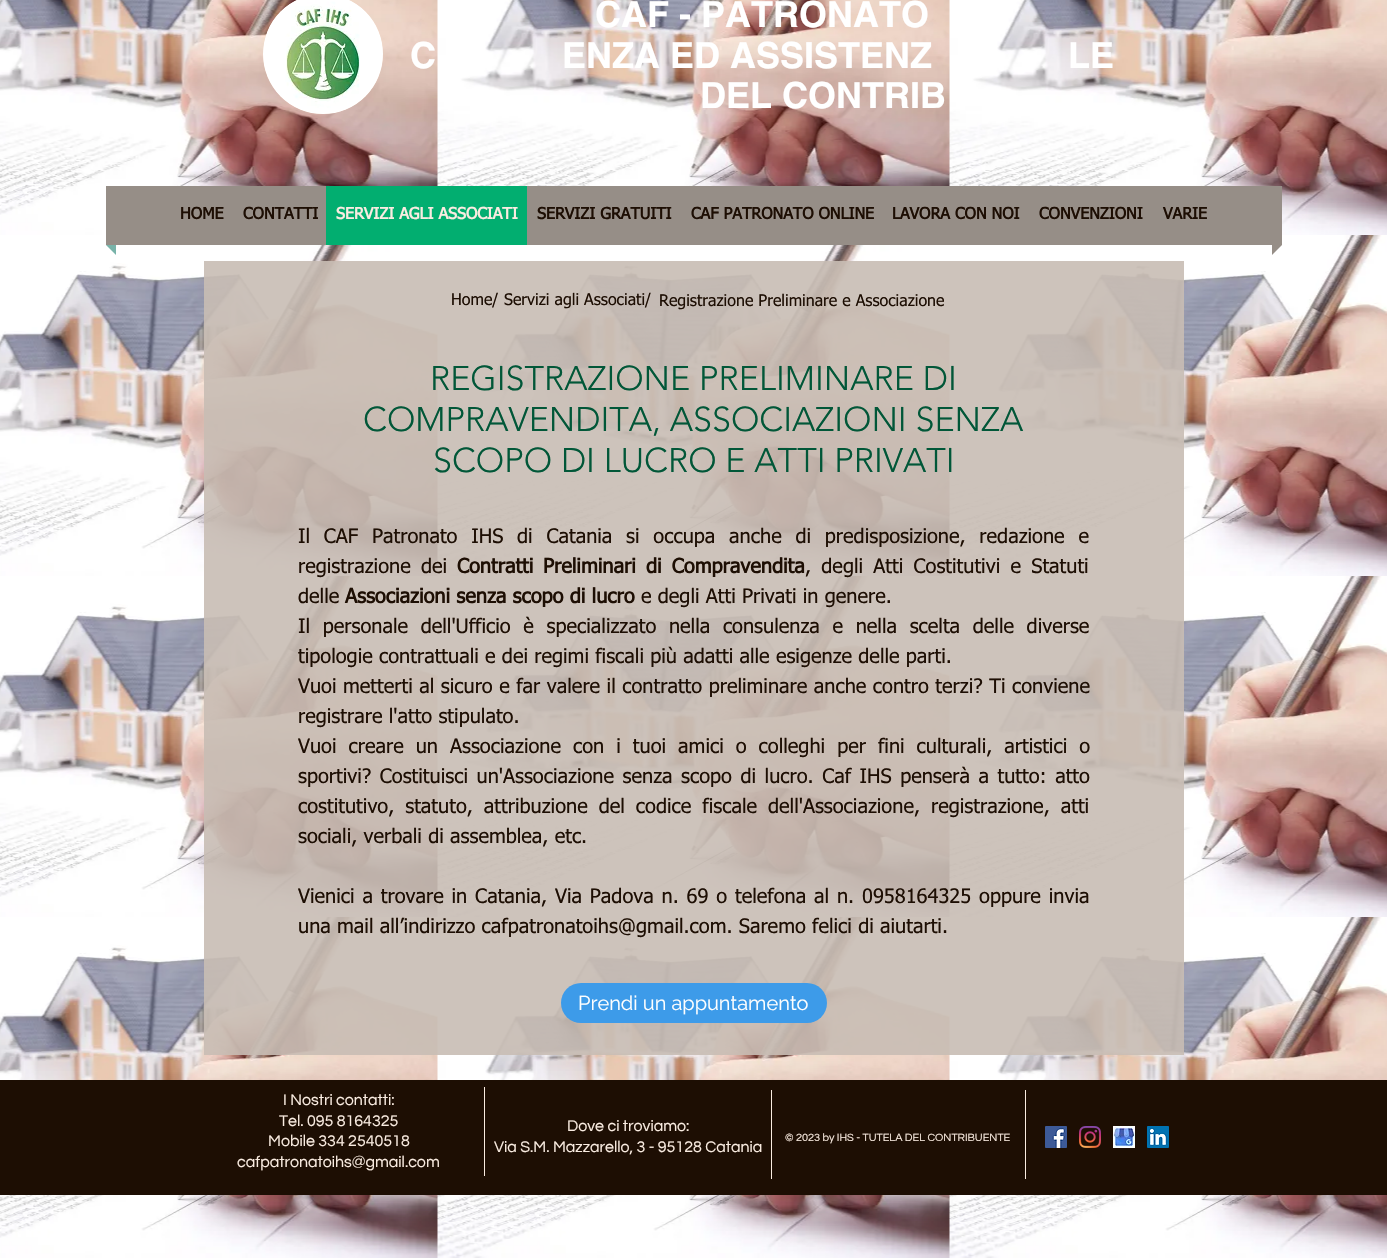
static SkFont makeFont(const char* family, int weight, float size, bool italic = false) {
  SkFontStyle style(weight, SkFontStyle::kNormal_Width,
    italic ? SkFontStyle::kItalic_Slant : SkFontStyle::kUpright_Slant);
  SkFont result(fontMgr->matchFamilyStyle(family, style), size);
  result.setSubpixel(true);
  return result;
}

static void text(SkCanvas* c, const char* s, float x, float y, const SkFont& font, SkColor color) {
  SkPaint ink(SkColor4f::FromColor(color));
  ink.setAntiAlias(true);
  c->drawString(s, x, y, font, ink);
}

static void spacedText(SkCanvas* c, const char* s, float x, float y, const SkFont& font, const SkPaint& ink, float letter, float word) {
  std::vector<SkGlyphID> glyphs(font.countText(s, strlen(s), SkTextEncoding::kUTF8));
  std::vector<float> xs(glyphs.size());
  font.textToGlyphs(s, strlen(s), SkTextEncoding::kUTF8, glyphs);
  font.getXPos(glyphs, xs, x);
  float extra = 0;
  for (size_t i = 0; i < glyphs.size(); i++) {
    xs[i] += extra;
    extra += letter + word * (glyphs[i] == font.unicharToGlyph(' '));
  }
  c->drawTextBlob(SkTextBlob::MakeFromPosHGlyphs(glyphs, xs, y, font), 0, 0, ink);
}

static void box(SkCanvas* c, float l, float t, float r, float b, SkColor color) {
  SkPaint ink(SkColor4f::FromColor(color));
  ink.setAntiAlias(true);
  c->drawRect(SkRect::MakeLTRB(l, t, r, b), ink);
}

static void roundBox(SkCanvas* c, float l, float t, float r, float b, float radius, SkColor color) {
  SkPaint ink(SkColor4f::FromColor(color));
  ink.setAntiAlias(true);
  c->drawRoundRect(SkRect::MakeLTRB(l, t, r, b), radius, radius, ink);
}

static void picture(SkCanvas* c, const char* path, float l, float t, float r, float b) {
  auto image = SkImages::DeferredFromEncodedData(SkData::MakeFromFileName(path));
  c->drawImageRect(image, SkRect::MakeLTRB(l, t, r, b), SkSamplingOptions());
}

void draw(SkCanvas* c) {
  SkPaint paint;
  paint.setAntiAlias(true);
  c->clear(0xffffffff);
  picture(c, "img_01.png", 0, 0, 1387, 1258);
  paint.setColor(0xfffaece1);
  c->drawCircle(323, 54, 60, paint);
  picture(c, "img_02.png", 263, 0, 383, 114);
  SkFont face1 = makeFont("helvetica", 700, 36);
  text(c, "CAF - PATRONATO", 595, 27, face1, 0xffffffff);
  text(c, "C", 410, 68, face1, 0xffffffff);
  text(c, "ENZA ED ASSISTENZ", 562, 68, face1, 0xffffffff);
  text(c, "LE", 1068, 68, face1, 0xffffffff);
  text(c, "DEL CONTRIB", 700, 108, face1, 0xffffffff);
  box(c, 106, 186, 1282, 245, 0xff968e87);
  SkFont face2 = makeFont("tahoma", 700, 16);
  text(c, "HOME", 180, 219, face2, 0xff1d0e03);
  text(c, "CONTATTI", 243, 219, face2, 0xff1d0e03);
  box(c, 326, 186, 527, 245, 0xff02ae70);
  text(c, "SERVIZI AGLI ASSOCIATI", 336, 219, face2, 0xfffaece1);
  text(c, "SERVIZI GRATUITI", 537, 219, face2, 0xff1d0e03);
  text(c, "CAF PATRONATO ONLINE", 691, 219, face2, 0xff1d0e03);
  text(c, "LAVORA CON NOI", 892, 219, face2, 0xff1d0e03);
  text(c, "CONVENZIONI", 1039, 219, face2, 0xff1d0e03);
  text(c, "VARIE", 1163, 219, face2, 0xff1d0e03);
  paint.setColor(0xff78b3a9);
  c->drawPath(SkPathBuilder().moveTo(106, 245).lineTo(116, 245).lineTo(116, 255).close().detach(), paint);
  paint.setColor(0xff968e87);
  c->drawPath(SkPathBuilder().moveTo(1272, 245).lineTo(1282, 245).lineTo(1272, 255).close().detach(), paint);
  box(c, 204, 261, 1184, 1055, 0xe6c8bdb4);
  SkFont face3 = makeFont("tahoma", 400, 16);
  text(c, "Home/", 451, 305, face3, 0xff1d0e03);
  text(c, "Servizi agli Associati/", 504, 305, face3, 0xff1d0e03);
  text(c, "Registrazione Preliminare e Associazione", 659, 306, face3, 0xff1d0e03);
  SkFont face4 = makeFont("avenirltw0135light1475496", 300, 34);
  text(c, "REGISTRAZIONE PRELIMINARE DI", 430, 390, face4, 0xff015738);
  text(c, "COMPRAVENDITA, ASSOCIAZIONI SENZA", 363, 431, face4, 0xff015738);
  text(c, "SCOPO DI LUCRO E ATTI PRIVATI", 433, 472, face4, 0xff015738);
  SkFont face5 = makeFont("tahoma", 400, 20);
  paint.setColor(0xff1d0e03);
  spacedText(c, "Il CAF Patronato IHS di Catania si occupa anche di predisposizione, redazione e", 298, 543, face5, paint, 0, 7.5f);
  spacedText(c, "registrazione dei", 298, 573, face5, paint, 0, 4);
  SkFont face6 = makeFont("tahoma", 700, 20);
  text(c, "Contratti", 457, 573, face6, 0xff1d0e03);
  spacedText(c, "Preliminari di Compravendita", 543, 573, face6, paint, 0, 4);
  spacedText(c, ", degli Atti Costitutivi e Statuti", 805, 573, face5, paint, 0, 4);
  text(c, "delle", 298, 603, face5, 0xff1d0e03);
  text(c, "Associazioni senza scopo di lucro", 345, 603, face6, 0xff1d0e03);
  text(c, "e degli Atti Privati in genere.", 641, 603, face5, 0xff1d0e03);
  spacedText(c, "Il personale dell'Ufficio è specializzato nella consulenza e nella scelta delle diverse", 298, 633, face5, paint, 0, 6.4f);
  text(c, "tipologie contrattuali e dei regimi fiscali più adatti alle esigenze delle parti.", 298, 663, face5, 0xff1d0e03);
  spacedText(c, "Vuoi metterti al sicuro e far valere il contratto preliminare anche contro terzi? Ti conviene", 298, 693, face5, paint, 0, 0.25f);
  text(c, "registrare l'atto stipulato.", 298, 723, face5, 0xff1d0e03);
  spacedText(c, "Vuoi creare un Associazione con i tuoi amici o colleghi per fini culturali, artistici o", 298, 753, face5, paint, 0, 5.75f);
  spacedText(c, "sportivi? Costituisci un'Associazione senza scopo di lucro. Caf IHS penserà a tutto: atto", 298, 783, face5, paint, 0, 2.25f);
  spacedText(c, "costitutivo, statuto, attribuzione del codice fiscale dell'Associazione, registrazione, atti", 298, 813, face5, paint, 0, 4.75f);
  text(c, "sociali, verbali di assemblea, etc.", 298, 843, face5, 0xff1d0e03);
  spacedText(c, "Vienici a trovare in Catania, Via Padova n. 69 o telefona al n. 0958164325 oppure invia", 298, 903, face5, paint, 0, 1.6f);
  text(c, "una mail all’indirizzo cafpatronatoihs@gmail.com. Saremo felici di aiutarti.", 298, 933, face5, 0xff1d0e03);
  roundBox(c, 561, 983, 827, 1023, 20, 0xff3d9be9);
  SkFont face7 = makeFont("Raleway", 400, 20);
  text(c, "Prendi un appuntamento", 578, 1010, face7, 0xffffffff);
  box(c, 0, 1080, 1387, 1195, 0xff1d0e03);
  SkFont face8 = makeFont("Questrial", 400, 16);
  text(c, "I Nostri contatti:", 283, 1105, face8, 0xfffaece1);
  text(c, "Tel. 095 8164325", 279, 1126, face8, 0xfffaece1);
  text(c, "Mobile 334 2540518", 268, 1146, face8, 0xfffaece1);
  text(c, "cafpatronatoihs@gmail.com", 237, 1167, face8, 0xfffaece1);
  box(c, 484, 1087, 485, 1176, 0xfffaece1);
  text(c, "Dove ci troviamo:", 567, 1131, face8, 0xfffaece1);
  text(c, "Via S.M. Mazzarello, 3 - 95128 Catania", 494, 1152, face8, 0xfffaece1);
  box(c, 771, 1090, 772, 1179, 0xfffaece1);
  SkFont face9 = makeFont("Questrial", 400, 11);
  text(c, "© 2023 by IHS - TUTELA DEL CONTRIBUENTE", 785, 1141, face9, 0xfffaece1);
  box(c, 1025, 1090, 1026, 1179, 0xfffaece1);
  picture(c, "img_03.png", 1045, 1126, 1067, 1148);
  picture(c, "img_04.png", 1079, 1126, 1101, 1148);
  picture(c, "img_05.png", 1113, 1126, 1135, 1148);
  picture(c, "img_06.png", 1147, 1126, 1169, 1148);
}
